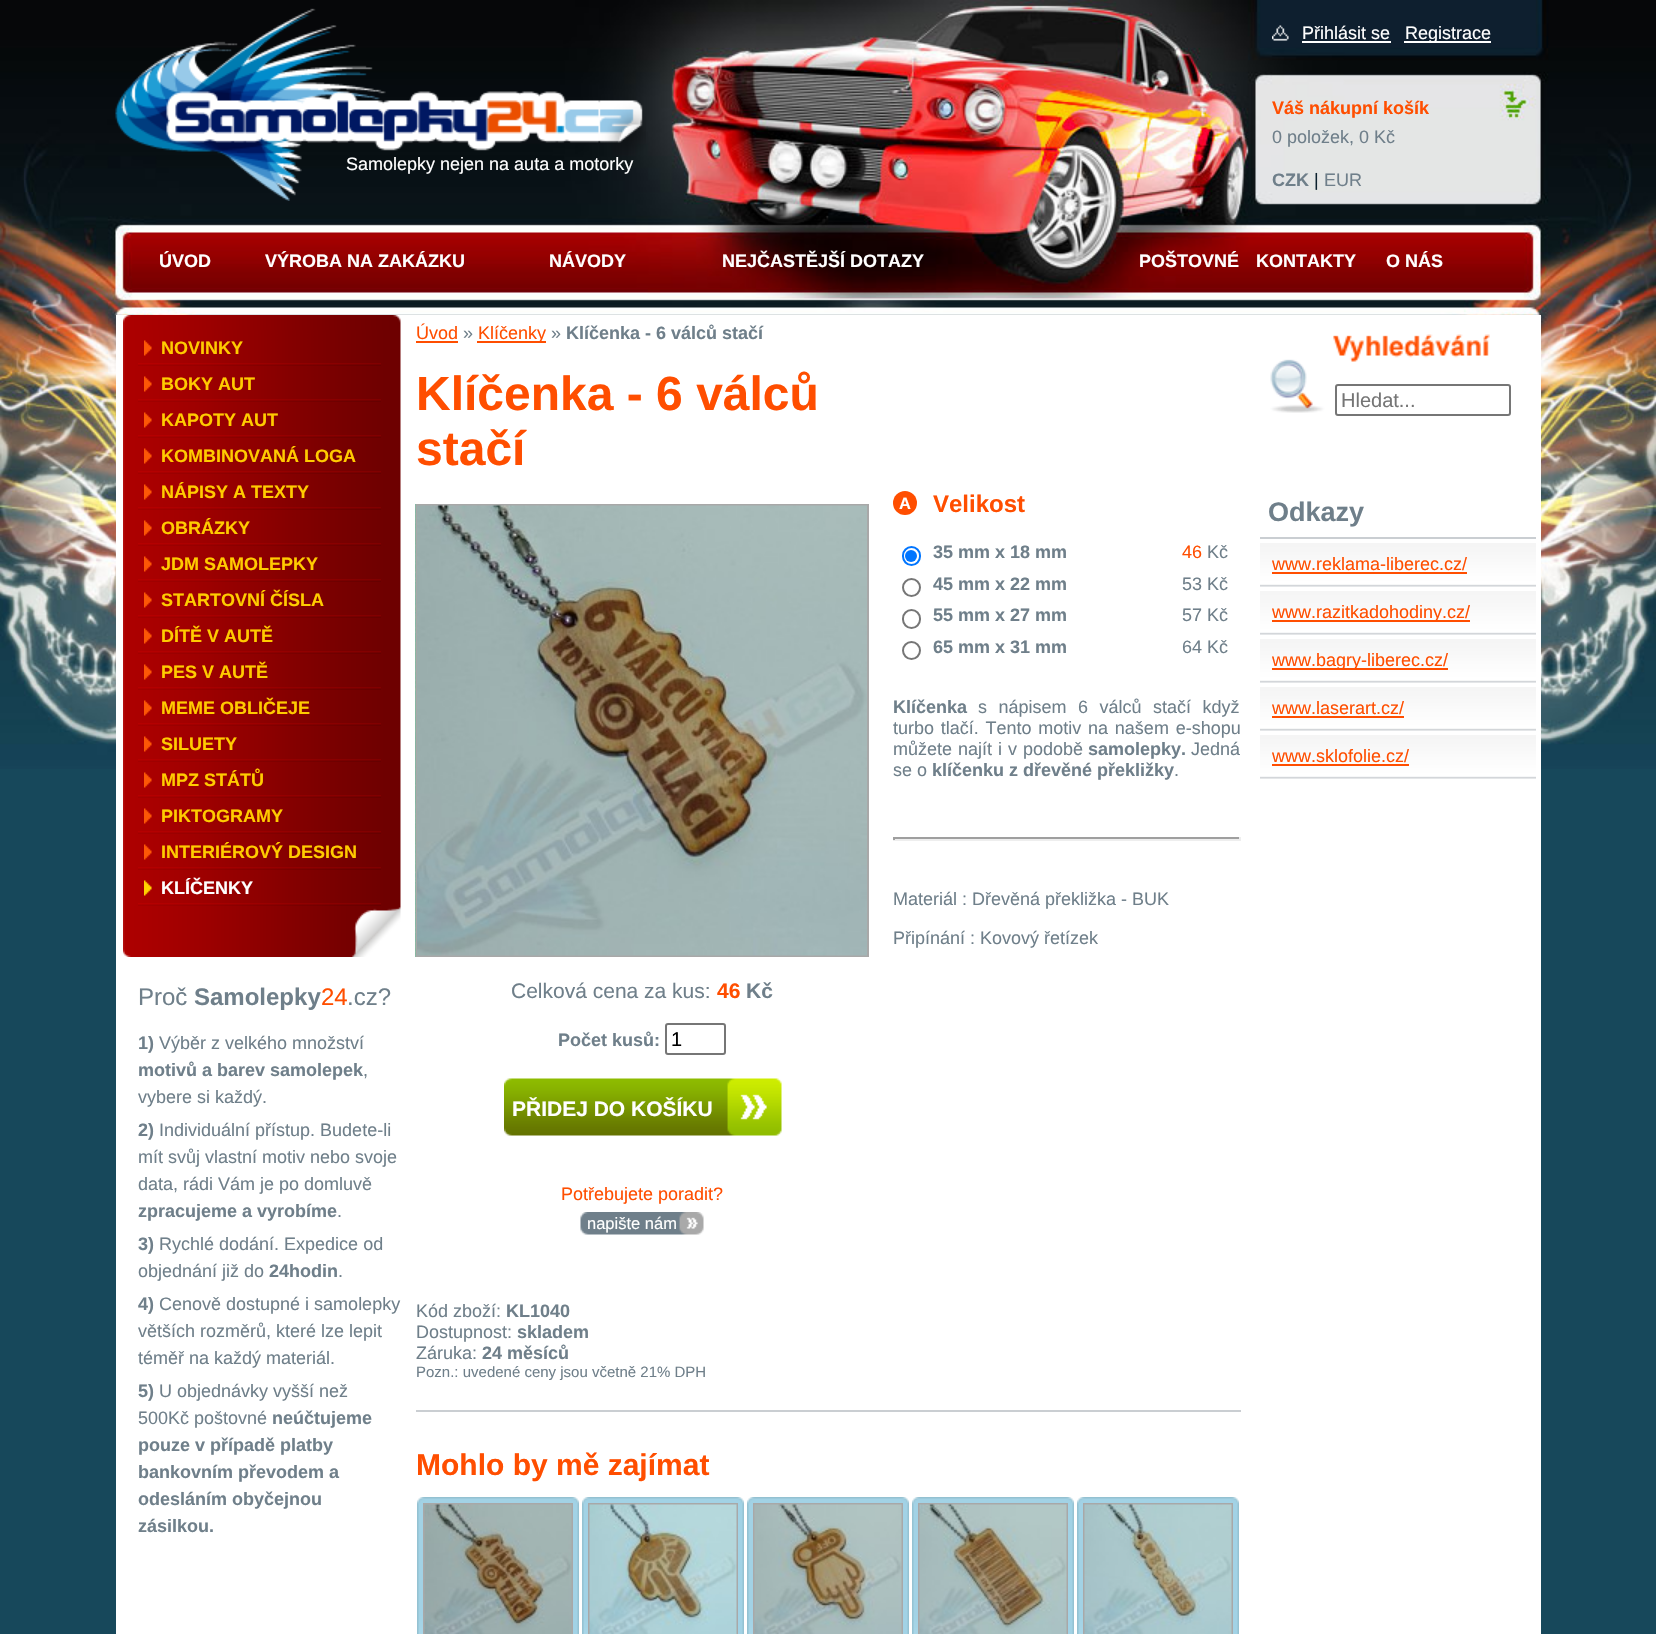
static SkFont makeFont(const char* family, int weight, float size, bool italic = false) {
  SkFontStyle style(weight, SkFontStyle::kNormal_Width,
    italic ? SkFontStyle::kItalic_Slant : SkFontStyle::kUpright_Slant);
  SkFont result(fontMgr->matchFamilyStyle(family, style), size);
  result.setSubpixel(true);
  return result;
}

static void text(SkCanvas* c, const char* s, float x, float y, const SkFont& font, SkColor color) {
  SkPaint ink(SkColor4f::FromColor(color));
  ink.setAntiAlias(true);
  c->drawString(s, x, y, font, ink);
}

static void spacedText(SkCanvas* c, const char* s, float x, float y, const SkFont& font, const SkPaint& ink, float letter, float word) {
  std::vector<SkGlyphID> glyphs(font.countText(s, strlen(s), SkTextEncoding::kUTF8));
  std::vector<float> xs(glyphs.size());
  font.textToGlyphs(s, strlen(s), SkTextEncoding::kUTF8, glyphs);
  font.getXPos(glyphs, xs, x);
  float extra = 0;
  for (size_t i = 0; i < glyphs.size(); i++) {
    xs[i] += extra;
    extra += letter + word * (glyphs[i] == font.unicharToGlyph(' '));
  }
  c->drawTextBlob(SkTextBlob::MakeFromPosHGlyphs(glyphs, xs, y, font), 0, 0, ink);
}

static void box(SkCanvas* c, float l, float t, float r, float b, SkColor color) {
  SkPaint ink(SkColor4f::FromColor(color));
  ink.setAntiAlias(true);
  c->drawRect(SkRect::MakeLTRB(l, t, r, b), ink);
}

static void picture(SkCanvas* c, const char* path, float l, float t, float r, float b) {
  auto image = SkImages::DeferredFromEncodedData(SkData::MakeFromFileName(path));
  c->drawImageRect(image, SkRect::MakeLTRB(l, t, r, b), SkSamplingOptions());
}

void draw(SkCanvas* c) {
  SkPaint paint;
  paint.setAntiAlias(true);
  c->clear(0xff17485b);
  picture(c, "img_01.png", 0, 0, 1656, 769);
  picture(c, "img_02.png", 1272, 25, 1289, 41);
  SkFont face1 = makeFont("Liberation Sans", 400, 18);
  text(c, "Přihlásit se", 1302, 39, face1, 0xffffffff);
  box(c, 1302, 41, 1391, 43, 0xffffffff);
  box(c, 1404, 41, 1491, 43, 0xffffffff);
  text(c, "Registrace", 1405, 39, face1, 0xffffffff);
  SkFont face2 = makeFont("Liberation Sans", 700, 18);
  text(c, "Váš nákupní košík", 1272, 114, face2, 0xffff4e00);
  text(c, "0 položek, 0 Kč", 1272, 143, face1, 0xff6f7f8a);
  text(c, "CZK", 1272, 186, face2, 0xff6f7f8a);
  text(c, "|", 1314, 186, face1, 0xff0c212f);
  text(c, "EUR", 1324, 186, face1, 0xff6f7f8a);
  box(c, 116, 315, 1541, 1634, 0xffffffff);
  picture(c, "img_03.png", 1270, 334, 1490, 413);
  paint.setStyle(SkPaint::kStroke_Style);
  paint.setStrokeWidth(2);
  paint.setColor(0xff767676);
  c->drawRoundRect(SkRect::MakeLTRB(1336, 385, 1510, 415), 2, 2, paint);
  SkFont face3 = makeFont("Liberation Sans", 400, 20);
  text(c, "Hledat...", 1341, 407, face3, 0xff757575);
  text(c, "Samolepky nejen na auta a motorky", 346, 170, face1, 0xffffffff);
  picture(c, "img_04.png", 115, 8, 646, 201);
  text(c, "ÚVOD", 159, 267, face2, 0xffffffff);
  text(c, "VÝROBA NA ZAKÁZKU", 265, 267, face2, 0xffffffff);
  text(c, "NÁVODY", 549, 267, face2, 0xffffffff);
  text(c, "NEJČASTĚJŠÍ DOTAZY", 722, 267, face2, 0xffffffff);
  text(c, "POŠTOVNÉ", 1139, 267, face2, 0xffffffff);
  text(c, "KONTAKTY", 1256, 267, face2, 0xffffffff);
  text(c, "O NÁS", 1386, 267, face2, 0xffffffff);
  picture(c, "img_05.png", 123, 315, 401, 330);
  picture(c, "img_06.png", 123, 906, 401, 957);
  picture(c, "img_07.png", 123, 330, 401, 906);
  picture(c, "img_08.png", 138, 363, 381, 366);
  picture(c, "img_09.png", 144, 340, 152, 356);
  text(c, "NOVINKY", 161, 354, face2, 0xffffcb00);
  picture(c, "img_08.png", 138, 399, 381, 402);
  picture(c, "img_09.png", 144, 376, 152, 392);
  text(c, "BOKY AUT", 161, 390, face2, 0xffffcb00);
  picture(c, "img_08.png", 138, 435, 381, 438);
  picture(c, "img_09.png", 144, 412, 152, 428);
  text(c, "KAPOTY AUT", 161, 426, face2, 0xffffcb00);
  picture(c, "img_08.png", 138, 471, 381, 474);
  picture(c, "img_09.png", 144, 448, 152, 464);
  text(c, "KOMBINOVANÁ LOGA", 161, 462, face2, 0xffffcb00);
  picture(c, "img_08.png", 138, 507, 381, 510);
  picture(c, "img_09.png", 144, 484, 152, 500);
  text(c, "NÁPISY A TEXTY", 161, 498, face2, 0xffffcb00);
  picture(c, "img_08.png", 138, 543, 381, 546);
  picture(c, "img_09.png", 144, 520, 152, 536);
  text(c, "OBRÁZKY", 161, 534, face2, 0xffffcb00);
  picture(c, "img_08.png", 138, 579, 381, 582);
  picture(c, "img_09.png", 144, 556, 152, 572);
  text(c, "JDM SAMOLEPKY", 161, 570, face2, 0xffffcb00);
  picture(c, "img_08.png", 138, 615, 381, 618);
  picture(c, "img_09.png", 144, 592, 152, 608);
  text(c, "STARTOVNÍ ČÍSLA", 161, 606, face2, 0xffffcb00);
  picture(c, "img_08.png", 138, 651, 381, 654);
  picture(c, "img_09.png", 144, 628, 152, 644);
  text(c, "DÍTĚ V AUTĚ", 161, 642, face2, 0xffffcb00);
  picture(c, "img_08.png", 138, 687, 381, 690);
  picture(c, "img_09.png", 144, 664, 152, 680);
  text(c, "PES V AUTĚ", 161, 678, face2, 0xffffcb00);
  picture(c, "img_08.png", 138, 723, 381, 726);
  picture(c, "img_09.png", 144, 700, 152, 716);
  text(c, "MEME OBLIČEJE", 161, 714, face2, 0xffffcb00);
  picture(c, "img_08.png", 138, 759, 381, 762);
  picture(c, "img_09.png", 144, 736, 152, 752);
  text(c, "SILUETY", 161, 750, face2, 0xffffcb00);
  picture(c, "img_08.png", 138, 795, 381, 798);
  picture(c, "img_09.png", 144, 772, 152, 788);
  text(c, "MPZ STÁTŮ", 161, 786, face2, 0xffffcb00);
  picture(c, "img_08.png", 138, 831, 381, 834);
  picture(c, "img_09.png", 144, 808, 152, 824);
  text(c, "PIKTOGRAMY", 161, 822, face2, 0xffffcb00);
  picture(c, "img_08.png", 138, 867, 381, 870);
  picture(c, "img_09.png", 144, 844, 152, 860);
  text(c, "INTERIÉROVÝ DESIGN", 161, 858, face2, 0xffffcb00);
  picture(c, "img_08.png", 138, 903, 381, 906);
  picture(c, "img_10.png", 144, 880, 152, 896);
  text(c, "KLÍČENKY", 161, 894, face2, 0xffffffff);
  SkFont face4 = makeFont("Liberation Sans", 400, 24);
  text(c, "Proč", 138, 1005, face4, 0xff6f7f8a);
  SkFont face5 = makeFont("Liberation Sans", 700, 24);
  text(c, "Samolepky", 194, 1005, face5, 0xff6f7f8a);
  text(c, "24", 321, 1005, face4, 0xffff4e00);
  text(c, ".cz?", 347, 1005, face4, 0xff6f7f8a);
  text(c, "1)", 138, 1049, face2, 0xff6f7f8a);
  text(c, "Výběr z velkého množství", 159, 1049, face1, 0xff6f7f8a);
  text(c, "motivů a barev samolepek", 138, 1076, face2, 0xff6f7f8a);
  text(c, ",", 363, 1076, face1, 0xff6f7f8a);
  text(c, "vybere si každý.", 138, 1103, face1, 0xff6f7f8a);
  text(c, "2)", 138, 1136, face2, 0xff6f7f8a);
  text(c, "Individuální přístup. Budete-li", 159, 1136, face1, 0xff6f7f8a);
  text(c, "mít svůj vlastní motiv nebo svoje", 138, 1163, face1, 0xff6f7f8a);
  text(c, "data, rádi Vám je po domluvě", 138, 1190, face1, 0xff6f7f8a);
  text(c, "zpracujeme a vyrobíme", 138, 1217, face2, 0xff6f7f8a);
  text(c, ".", 337, 1217, face1, 0xff6f7f8a);
  text(c, "3)", 138, 1250, face2, 0xff6f7f8a);
  text(c, "Rychlé dodání. Expedice od", 159, 1250, face1, 0xff6f7f8a);
  text(c, "objednání již do", 138, 1277, face1, 0xff6f7f8a);
  text(c, "24hodin", 269, 1277, face2, 0xff6f7f8a);
  text(c, ".", 338, 1277, face1, 0xff6f7f8a);
  text(c, "4)", 138, 1310, face2, 0xff6f7f8a);
  text(c, "Cenově dostupné i samolepky", 159, 1310, face1, 0xff6f7f8a);
  text(c, "větších rozměrů, které lze lepit", 138, 1337, face1, 0xff6f7f8a);
  text(c, "téměř na každý materiál.", 138, 1364, face1, 0xff6f7f8a);
  text(c, "5)", 138, 1397, face2, 0xff6f7f8a);
  text(c, "U objednávky vyšší než", 159, 1397, face1, 0xff6f7f8a);
  text(c, "500Kč poštovné", 138, 1424, face1, 0xff6f7f8a);
  text(c, "neúčtujeme", 272, 1424, face2, 0xff6f7f8a);
  text(c, "pouze v případě platby", 138, 1451, face2, 0xff6f7f8a);
  text(c, "bankovním převodem a", 138, 1478, face2, 0xff6f7f8a);
  text(c, "odesláním obyčejnou", 138, 1505, face2, 0xff6f7f8a);
  text(c, "zásilkou.", 138, 1532, face2, 0xff6f7f8a);
  text(c, "Úvod", 416, 339, face1, 0xffff4e00);
  box(c, 416, 341, 458, 343, 0xffff4e00);
  text(c, "»", 463, 339, face1, 0xff6f7f8a);
  box(c, 477, 341, 546, 343, 0xffff4e00);
  text(c, "Klíčenky", 478, 339, face1, 0xffff4e00);
  text(c, "»", 551, 339, face1, 0xff6f7f8a);
  text(c, "Klíčenka - 6 válců stačí", 566, 339, face2, 0xff6f7f8a);
  SkFont face6 = makeFont("Liberation Sans", 700, 48);
  text(c, "Klíčenka - 6 válců", 416, 410, face6, 0xffff4e00);
  text(c, "stačí", 416, 465, face6, 0xffff4e00);
  picture(c, "img_11.png", 415, 504, 416, 957);
  paint.setColor(0xffa8a8a8);
  c->drawRect(SkRect::MakeLTRB(417, 505, 868, 956), paint);
  picture(c, "img_12.png", 417, 505, 867, 956);
  SkFont face7 = makeFont("Liberation Sans", 400, 21);
  text(c, "Celková cena za kus:", 511, 998, face7, 0xff6f7f8a);
  SkFont face8 = makeFont("Liberation Sans", 700, 21);
  text(c, "46", 717, 998, face8, 0xffff4e00);
  text(c, "Kč", 746, 998, face8, 0xff6f7f8a);
  text(c, "Počet kusů:", 558, 1046, face2, 0xff6f7f8a);
  paint.setColor(0xff767676);
  c->drawRoundRect(SkRect::MakeLTRB(666, 1024, 725, 1054), 2, 2, paint);
  text(c, "1", 671, 1046, face3, 0xff000000);
  picture(c, "img_13.png", 504, 1078, 782, 1136);
  text(c, "PŘIDEJ DO KOŠÍKU", 512, 1116, face8, 0xffffffff);
  text(c, "Potřebujete poradit?", 561, 1200, face1, 0xffff4e00);
  picture(c, "img_14.png", 580, 1212, 704, 1235);
  SkFont face9 = makeFont("Liberation Sans", 400, 16.5f);
  text(c, "napište nám", 587, 1229, face9, 0xffffffff);
  text(c, "Kód zboží:", 416, 1317, face1, 0xff6f7f8a);
  text(c, "KL1040", 506, 1317, face2, 0xff6f7f8a);
  text(c, "Dostupnost:", 416, 1338, face1, 0xff6f7f8a);
  text(c, "skladem", 517, 1338, face2, 0xff6f7f8a);
  text(c, "Záruka:", 416, 1359, face1, 0xff6f7f8a);
  text(c, "24 měsíců", 482, 1359, face2, 0xff6f7f8a);
  SkFont face10 = makeFont("Liberation Sans", 400, 15);
  text(c, "Pozn.: uvedené ceny jsou včetně 21% DPH", 416, 1377, face10, 0xff6f7f8a);
  paint.setStyle(SkPaint::kFill_Style);
  paint.setColor(0xffff4e00);
  c->drawCircle(905, 503, 12, paint);
  SkFont face11 = makeFont("Liberation Sans", 700, 16.5f);
  text(c, "A", 899, 509, face11, 0xffffffff);
  text(c, "Velikost", 933, 512, face5, 0xffff4e00);
  paint.setStyle(SkPaint::kStroke_Style);
  paint.setColor(0xff0075ff);
  c->drawRoundRect(SkRect::MakeLTRB(903, 547, 920, 565), 8.5f, 8.5f, paint);
  paint.setStyle(SkPaint::kFill_Style);
  c->drawCircle(911, 556, 6, paint);
  text(c, "35 mm x 18 mm", 933, 558, face2, 0xff6f7f8a);
  text(c, "46", 1182, 558, face1, 0xffff4e00);
  text(c, "Kč", 1207, 558, face1, 0xff6f7f8a);
  paint.setStyle(SkPaint::kStroke_Style);
  paint.setColor(0xff767676);
  c->drawCircle(911.5f, 587.5f, 8.5f, paint);
  text(c, "45 mm x 22 mm", 933, 590, face2, 0xff6f7f8a);
  text(c, "53 Kč", 1182, 590, face1, 0xff6f7f8a);
  c->drawRoundRect(SkRect::MakeLTRB(903, 610, 920, 628), 8.5f, 8.5f, paint);
  text(c, "55 mm x 27 mm", 933, 621, face2, 0xff6f7f8a);
  text(c, "57 Kč", 1182, 621, face1, 0xff6f7f8a);
  c->drawCircle(911.5f, 650.5f, 8.5f, paint);
  text(c, "65 mm x 31 mm", 933, 653, face2, 0xff6f7f8a);
  text(c, "64 Kč", 1182, 653, face1, 0xff6f7f8a);
  text(c, "Klíčenka", 893, 713, face2, 0xff6f7f8a);
  paint.setStyle(SkPaint::kFill_Style);
  paint.setColor(0xff6f7f8a);
  spacedText(c, "s nápisem 6 válců stačí když", 978, 713, face1, paint, 0, 6.5f);
  spacedText(c, "turbo tlačí. Tento motiv na našem e-shopu", 893, 734, face1, paint, 0, 1.75f);
  spacedText(c, "můžete najít i v podobě", 893, 755, face1, paint, 0, 1);
  text(c, "samolepky.", 1088, 755, face2, 0xff6f7f8a);
  text(c, "Jedná", 1191, 755, face1, 0xff6f7f8a);
  text(c, "se o", 893, 776, face1, 0xff6f7f8a);
  text(c, "klíčenku z dřevěné překližky", 932, 776, face2, 0xff6f7f8a);
  text(c, ".", 1174, 776, face1, 0xff6f7f8a);
  box(c, 893, 837, 1241, 839, 0xff9f9f9f);
  box(c, 1239, 837, 1241, 840, 0xffeeeeee);
  box(c, 893, 839, 1241, 841, 0xffeeeeee);
  box(c, 893, 837, 895, 840, 0xff9f9f9f);
  text(c, "Materiál : Dřevěná překližka - BUK", 893, 905, face1, 0xff6f7f8a);
  text(c, "Připínání : Kovový řetízek", 893, 944, face1, 0xff6f7f8a);
  box(c, 416, 1410, 1241, 1412, 0xffcaced2);
  SkFont face12 = makeFont("Liberation Sans", 700, 30);
  text(c, "Mohlo by mě zajímat", 416, 1475, face12, 0xffff4e00);
  picture(c, "img_15.png", 417, 1497, 579, 1634);
  paint.setStyle(SkPaint::kStroke_Style);
  paint.setColor(0xffa8a8a8);
  c->drawRect(SkRect::MakeLTRB(424, 1504, 572, 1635), paint);
  picture(c, "img_16.png", 424, 1504, 572, 1634);
  picture(c, "img_15.png", 582, 1497, 744, 1634);
  c->drawRect(SkRect::MakeLTRB(589, 1504, 737, 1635), paint);
  picture(c, "img_17.png", 589, 1504, 737, 1634);
  picture(c, "img_15.png", 747, 1497, 909, 1634);
  c->drawRect(SkRect::MakeLTRB(754, 1504, 902, 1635), paint);
  picture(c, "img_18.png", 754, 1504, 902, 1634);
  picture(c, "img_19.png", 912, 1497, 1074, 1634);
  c->drawRect(SkRect::MakeLTRB(919, 1504, 1067, 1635), paint);
  picture(c, "img_20.png", 919, 1504, 1067, 1634);
  picture(c, "img_15.png", 1077, 1497, 1239, 1634);
  c->drawRect(SkRect::MakeLTRB(1084, 1504, 1232, 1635), paint);
  picture(c, "img_21.png", 1084, 1504, 1232, 1634);
  box(c, 1260, 537, 1536, 539, 0xffcaced2);
  SkFont face13 = makeFont("Liberation Sans", 700, 27);
  text(c, "Odkazy", 1268, 521, face13, 0xff6f7f8a);
  picture(c, "img_22.png", 1260, 543, 1536, 587);
  text(c, "www.reklama-liberec.cz/", 1272, 570, face1, 0xffff4e00);
  box(c, 1272, 572, 1467, 574, 0xffff4e00);
  picture(c, "img_23.png", 1260, 591, 1536, 635);
  box(c, 1272, 620, 1470, 622, 0xffff4e00);
  text(c, "www.razitkadohodiny.cz/", 1272, 618, face1, 0xffff4e00);
  picture(c, "img_22.png", 1260, 639, 1536, 683);
  box(c, 1272, 668, 1448, 670, 0xffff4e00);
  text(c, "www.bagry-liberec.cz/", 1272, 666, face1, 0xffff4e00);
  picture(c, "img_24.png", 1260, 687, 1536, 731);
  text(c, "www.laserart.cz/", 1272, 714, face1, 0xffff4e00);
  box(c, 1272, 716, 1404, 718, 0xffff4e00);
  picture(c, "img_23.png", 1260, 735, 1536, 779);
  text(c, "www.sklofolie.cz/", 1272, 762, face1, 0xffff4e00);
  box(c, 1272, 764, 1409, 766, 0xffff4e00);
}
